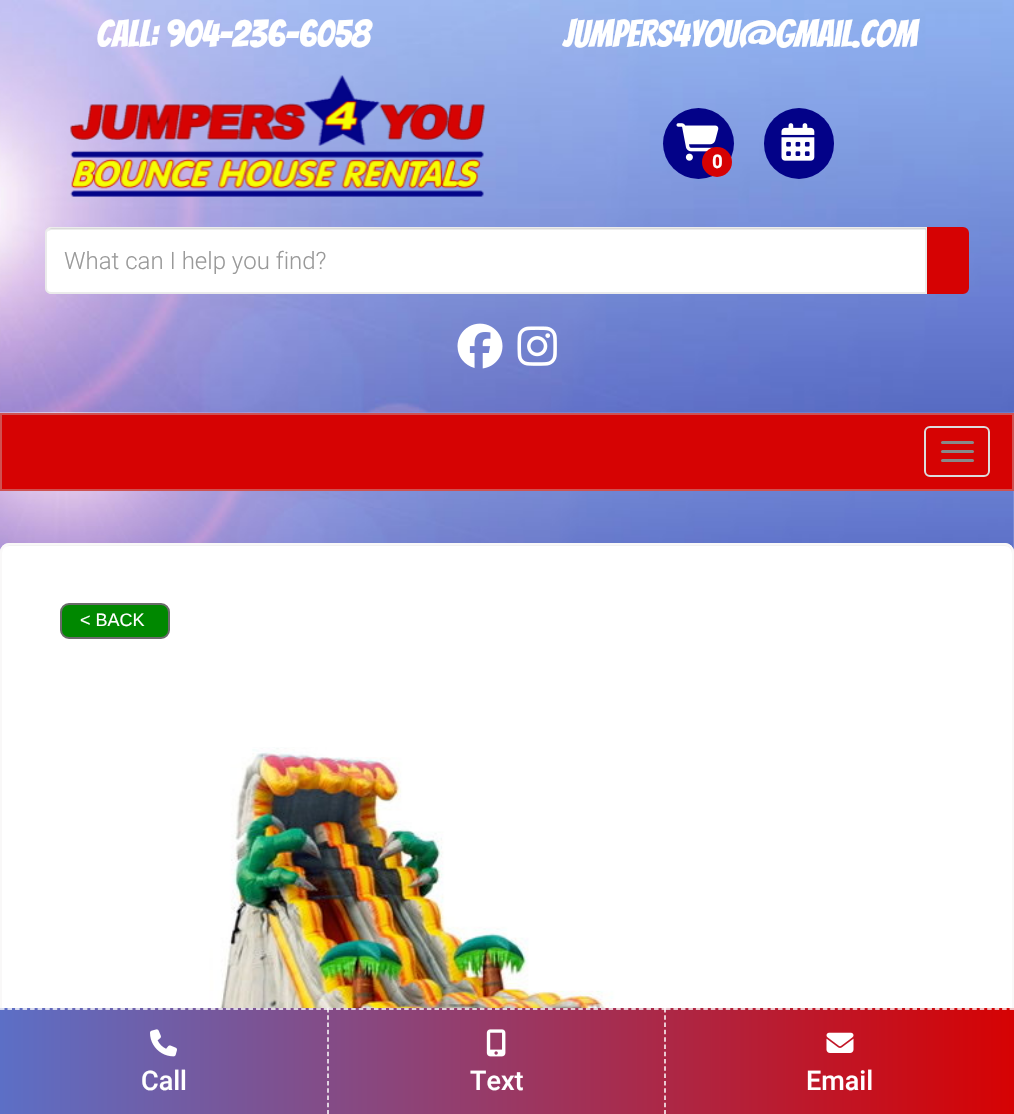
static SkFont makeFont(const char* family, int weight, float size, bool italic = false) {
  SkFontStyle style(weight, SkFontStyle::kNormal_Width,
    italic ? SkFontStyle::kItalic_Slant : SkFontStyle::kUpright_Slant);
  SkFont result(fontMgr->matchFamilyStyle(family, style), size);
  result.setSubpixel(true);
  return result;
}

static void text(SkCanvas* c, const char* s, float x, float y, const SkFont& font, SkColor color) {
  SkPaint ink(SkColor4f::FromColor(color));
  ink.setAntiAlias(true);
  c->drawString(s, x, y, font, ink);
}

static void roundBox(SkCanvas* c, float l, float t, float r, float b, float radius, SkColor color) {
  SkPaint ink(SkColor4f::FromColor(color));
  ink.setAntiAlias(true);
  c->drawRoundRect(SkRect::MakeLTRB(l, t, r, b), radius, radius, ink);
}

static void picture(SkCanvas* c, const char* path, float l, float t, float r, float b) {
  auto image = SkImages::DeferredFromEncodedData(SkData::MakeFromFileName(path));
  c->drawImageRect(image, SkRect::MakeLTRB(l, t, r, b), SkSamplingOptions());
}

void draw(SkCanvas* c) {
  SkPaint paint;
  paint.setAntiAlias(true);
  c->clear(0xffffffff);
  picture(c, "img_01.png", 0, 412, 1014, 552);
  picture(c, "img_02.png", 0, 0, 1014, 413);
  SkFont face1 = makeFont("Bangers", 400, 37.5f);
  text(c, "Call: 904-236-6058", 96, 47, face1, 0xffffffff);
  text(c, "jumpers4you@gmail.com", 563, 47, face1, 0xffffffff);
  paint.setColor(0xffffffff);
  c->drawPath(SkPathBuilder().moveTo(51, 227).lineTo(927, 227).lineTo(927, 294).lineTo(51, 294).cubicTo(47.5f, 294, 45, 291.5f, 45, 288).lineTo(45, 233).cubicTo(45, 229.5f, 47.5f, 227, 51, 227).close().detach(), paint);
  paint.setColor(0xffececec);
  c->drawPath(SkPathBuilder().moveTo(51, 230).lineTo(926, 230).lineTo(926, 228).lineTo(52, 228).cubicTo(50, 228, 48, 230, 47, 232).cubicTo(48, 231, 50, 230, 51, 230).close().detach(), paint);
  paint.setStyle(SkPaint::kStroke_Style);
  paint.setStrokeWidth(2);
  paint.setColor(0x14000000);
  c->drawPath(SkPathBuilder().moveTo(51, 228).lineTo(926, 228).lineTo(926, 293).lineTo(51, 293).cubicTo(48, 293, 46, 291, 46, 288).lineTo(46, 233).cubicTo(46, 230, 48, 228, 51, 228).close().detach(), paint);
  SkFont face2 = makeFont("Roboto", 300, 24);
  text(c, "What can I help you find?", 64, 269, face2, 0xff999999);
  paint.setStyle(SkPaint::kFill_Style);
  paint.setColor(0xffd60203);
  c->drawPath(SkPathBuilder().moveTo(928.5f, 228.5f).lineTo(963, 228.5f).cubicTo(965.5f, 228.5f, 967.5f, 230.5f, 967.5f, 233).lineTo(967.5f, 288).cubicTo(967.5f, 290.5f, 965.5f, 292.5f, 963, 292.5f).lineTo(928.5f, 292.5f).close().detach(), paint);
  paint.setStyle(SkPaint::kStroke_Style);
  paint.setStrokeWidth(3);
  c->drawPath(SkPathBuilder().moveTo(928.5f, 228.5f).lineTo(963, 228.5f).cubicTo(965.5f, 228.5f, 967.5f, 230.5f, 967.5f, 233).lineTo(967.5f, 288).cubicTo(967.5f, 290.5f, 965.5f, 292.5f, 963, 292.5f).lineTo(928.5f, 292.5f).close().detach(), paint);
  picture(c, "img_03.png", 457, 323, 503, 369);
  picture(c, "img_04.png", 517, 326, 557, 366);
  picture(c, "img_05.png", 70, 75, 485, 197);
  paint.setStyle(SkPaint::kFill_Style);
  paint.setColor(0xff030288);
  c->drawCircle(698.5f, 143.5f, 35.5f, paint);
  picture(c, "img_06.png", 676, 123, 719, 161);
  paint.setColor(0xffd60203);
  c->drawCircle(717, 162, 15, paint);
  SkFont face3 = makeFont("Roboto", 700, 18);
  text(c, "0", 712, 168, face3, 0xffffffff);
  roundBox(c, 764, 108, 834, 179, 35, 0xff030288);
  picture(c, "img_07.png", 781, 123, 815, 161);
  paint.setColor(0xffd60303);
  c->drawRect(SkRect::MakeLTRB(1, 414, 1013, 490), paint);
  paint.setStyle(SkPaint::kStroke_Style);
  paint.setStrokeWidth(2);
  paint.setColor(0xffcf5151);
  c->drawRect(SkRect::MakeLTRB(1, 414, 1013, 490), paint);
  paint.setColor(0xffdddddd);
  c->drawRoundRect(SkRect::MakeLTRB(925, 427, 989, 476), 5, 5, paint);
  roundBox(c, 941, 441, 974, 444, 1.5f, 0xff888888);
  roundBox(c, 941, 450, 974, 453, 1.5f, 0xff888888);
  roundBox(c, 941, 459, 974, 462, 1.5f, 0xff888888);
  roundBox(c, 0, 543, 1014, 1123, 9, 0xffffffff);
  paint.setStyle(SkPaint::kFill_Style);
  paint.setColor(0xfff2f2f2);
  c->drawPath(SkPathBuilder().moveTo(9, 546).lineTo(1005, 546).cubicTo(1009, 546, 1012, 549, 1012, 554).lineTo(1012, 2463).lineTo(1012, 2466).cubicTo(1012, 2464, 1013, 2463, 1013, 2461).lineTo(1013, 553).cubicTo(1013, 549, 1009, 545, 1005, 545).lineTo(10, 545).cubicTo(6, 545, 2, 549, 2, 553).lineTo(2, 554).cubicTo(2, 549, 5, 546, 9, 546).close().detach(), paint);
  paint.setStyle(SkPaint::kStroke_Style);
  paint.setColor(0xfff9f8f8);
  c->drawRoundRect(SkRect::MakeLTRB(1, 544, 1013, 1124), 8, 8, paint);
  paint.setStyle(SkPaint::kFill_Style);
  paint.setColor(0xff008800);
  c->drawRoundRect(SkRect::MakeLTRB(61, 604, 169, 638), 8, 8, paint);
  paint.setStyle(SkPaint::kStroke_Style);
  paint.setColor(0xff6b6b6b);
  c->drawRoundRect(SkRect::MakeLTRB(61, 604, 169, 638), 8, 8, paint);
  SkFont face4 = makeFont("Liberation Sans", 400, 18);
  text(c, "< BACK", 80, 626, face4, 0xffffffff);
  picture(c, "img_08.png", 208, 747, 824, 1008);
  paint.setStyle(SkPaint::kFill_Style);
  {
    const SkColor colors[] = {0xff5c6fc6, 0xffd60203};
    const float stops[] = {0, 1};
    const SkPoint ends[] = {{0, 1061}, {1014, 1061}};
    paint.setShader(SkGradientShader::MakeLinear(ends, colors, stops, 2, SkTileMode::kClamp));
    paint.setAlpha(255);
  }
  c->drawRect(SkRect::MakeLTRB(0, 1008, 1014, 1114), paint);
  paint.setStyle(SkPaint::kStroke_Style);
  paint.setStrokeWidth(1.5f);
  paint.setShader(nullptr);
  paint.setColor(0xffffffff);
  paint.setPathEffect(SkDashPathEffect::Make({{4.5f, 3.03f}}, 0));
  c->drawPath(SkPathBuilder().moveTo(0, 1009).lineTo(328.5f, 1009).detach(), paint);
  paint.setPathEffect(nullptr);
  paint.setPathEffect(SkDashPathEffect::Make({{4.5f, 2.79f}}, 0));
  c->drawPath(SkPathBuilder().moveTo(328, 1008).lineTo(328, 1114.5f).detach(), paint);
  paint.setPathEffect(nullptr);
  picture(c, "img_09.png", 150, 1029, 177, 1057);
  SkFont face5 = makeFont("Roboto", 500, 27);
  text(c, "Call", 141, 1090, face5, 0xffffffff);
  paint.setPathEffect(SkDashPathEffect::Make({{4.5f, 3.07f}}, 0));
  c->drawPath(SkPathBuilder().moveTo(328.5f, 1009).lineTo(666, 1009).detach(), paint);
  paint.setPathEffect(nullptr);
  paint.setPathEffect(SkDashPathEffect::Make({{4.5f, 2.79f}}, 0));
  c->drawPath(SkPathBuilder().moveTo(665, 1008).lineTo(665, 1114.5f).detach(), paint);
  paint.setPathEffect(nullptr);
  picture(c, "img_10.png", 486, 1029, 506, 1057);
  text(c, "Text", 470, 1090, face5, 0xffffffff);
  paint.setPathEffect(SkDashPathEffect::Make({{4.5f, 2.97f}}, 0));
  c->drawPath(SkPathBuilder().moveTo(666, 1009).lineTo(1014, 1009).detach(), paint);
  paint.setPathEffect(nullptr);
  picture(c, "img_11.png", 826, 1032, 854, 1053);
  text(c, "Email", 806, 1090, face5, 0xffffffff);
}
